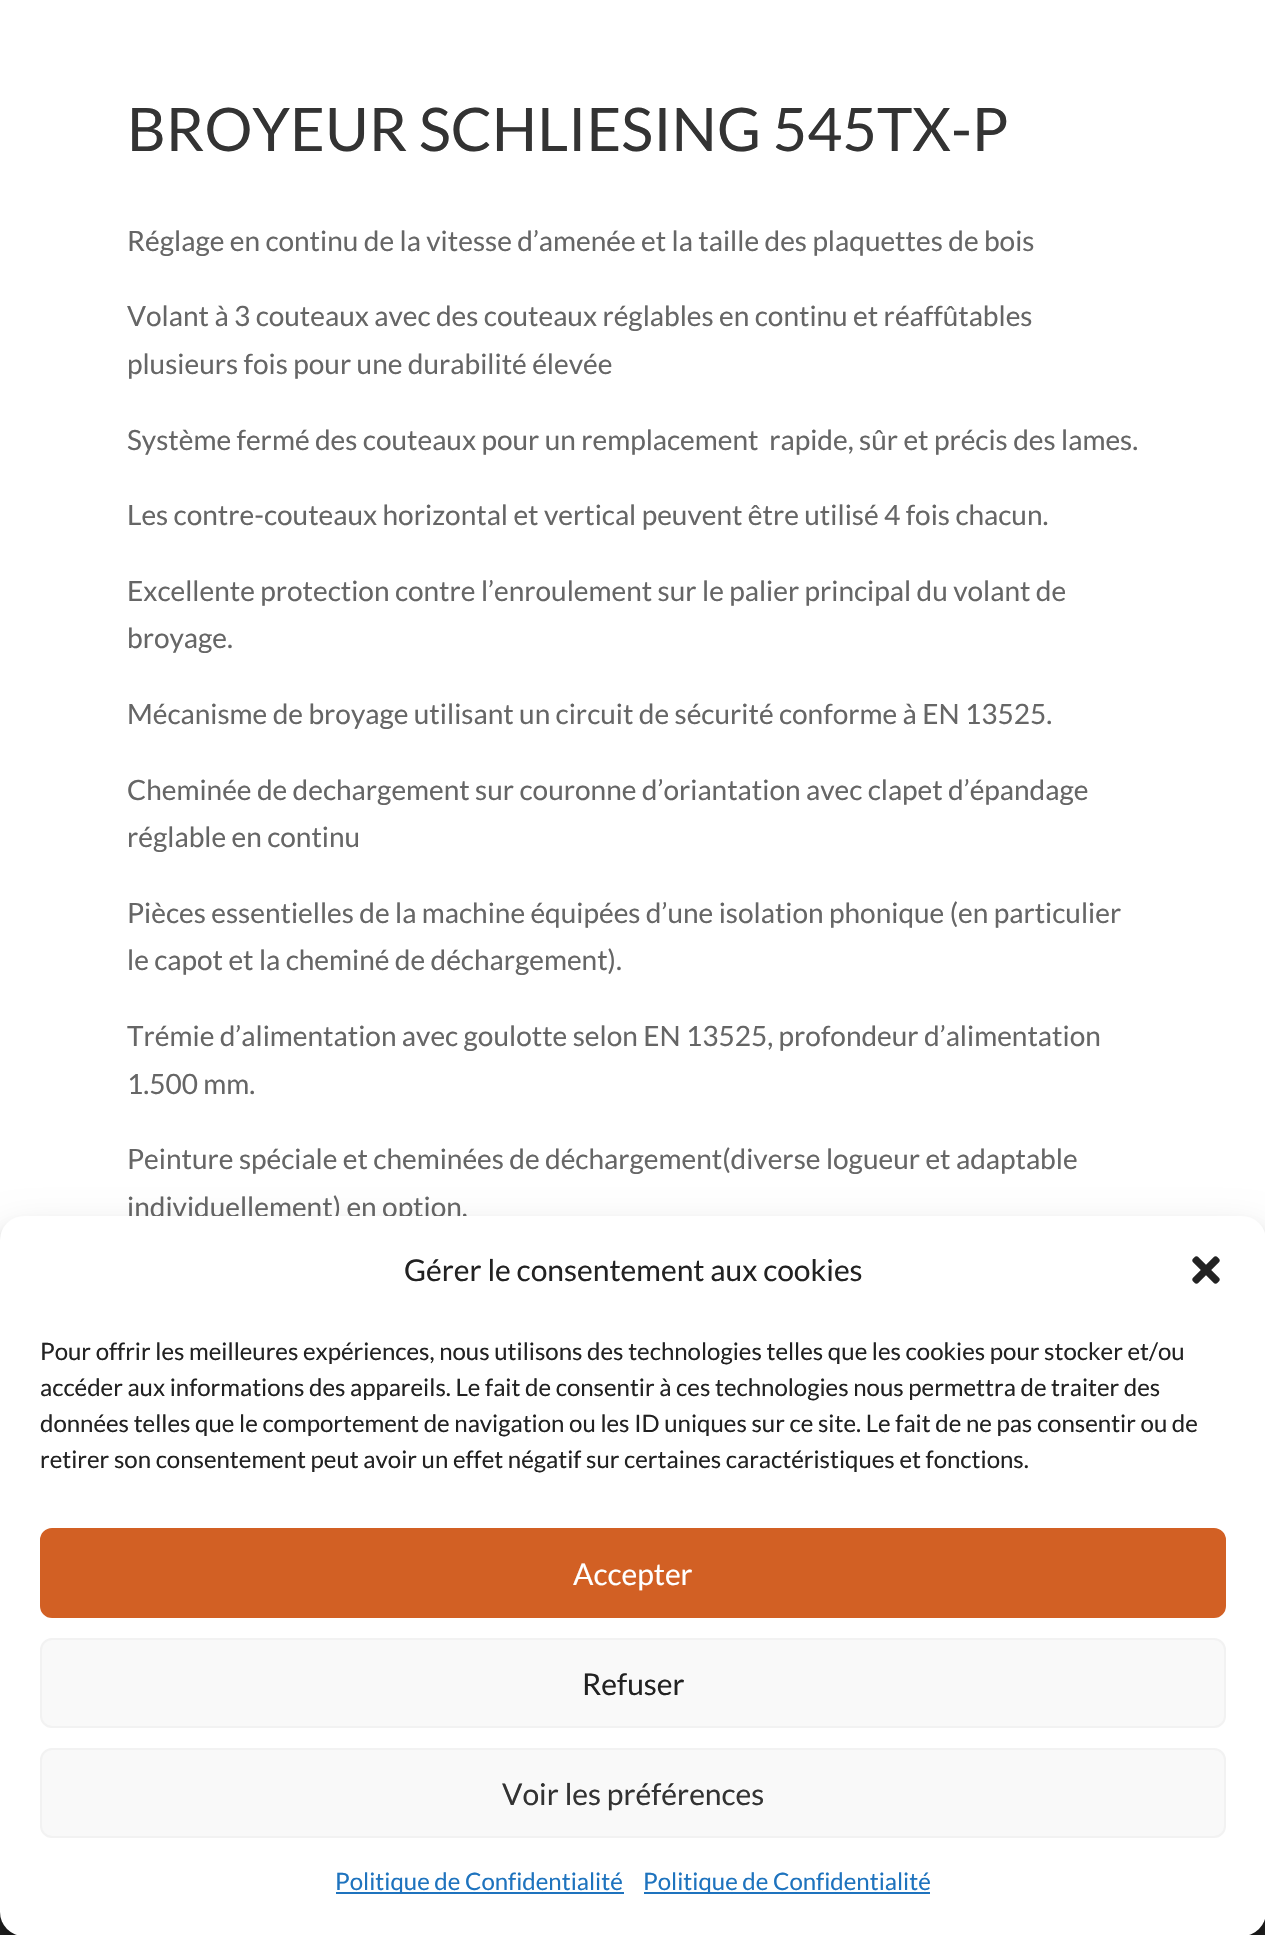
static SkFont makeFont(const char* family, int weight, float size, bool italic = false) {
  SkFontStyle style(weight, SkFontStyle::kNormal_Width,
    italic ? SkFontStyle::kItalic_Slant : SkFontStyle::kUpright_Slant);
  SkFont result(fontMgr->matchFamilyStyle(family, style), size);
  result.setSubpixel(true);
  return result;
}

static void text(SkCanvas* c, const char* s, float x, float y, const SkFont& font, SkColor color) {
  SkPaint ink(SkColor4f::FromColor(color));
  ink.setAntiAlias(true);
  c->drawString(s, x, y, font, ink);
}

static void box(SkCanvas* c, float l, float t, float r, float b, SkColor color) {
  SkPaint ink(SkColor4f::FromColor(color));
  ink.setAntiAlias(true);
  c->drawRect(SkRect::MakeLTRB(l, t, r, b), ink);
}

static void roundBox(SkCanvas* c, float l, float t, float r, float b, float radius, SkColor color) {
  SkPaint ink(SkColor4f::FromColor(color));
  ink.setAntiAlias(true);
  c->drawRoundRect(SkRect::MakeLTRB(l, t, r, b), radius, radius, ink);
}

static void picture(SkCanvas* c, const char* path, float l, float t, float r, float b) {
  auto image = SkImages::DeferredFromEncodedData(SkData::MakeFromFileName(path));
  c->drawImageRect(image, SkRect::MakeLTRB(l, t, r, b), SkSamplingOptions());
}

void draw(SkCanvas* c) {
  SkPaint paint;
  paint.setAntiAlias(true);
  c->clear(0xffffffff);
  SkFont face1 = makeFont("Lato", 400, 60);
  text(c, "BROYEUR SCHLIESING 545TX-P", 127, 151, face1, 0xff333333);
  SkFont face2 = makeFont("Lato", 400, 28);
  text(c, "Réglage en continu de la vitesse d’amenée et la taille des plaquettes de bois", 127, 251, face2, 0xff666666);
  text(c, "Volant à 3 couteaux avec des couteaux réglables en continu et réaffûtables", 127, 326, face2, 0xff666666);
  text(c, "plusieurs fois pour une durabilité élevée", 127, 374, face2, 0xff666666);
  text(c, "Système fermé des couteaux pour un remplacement  rapide, sûr et précis des lames.", 127, 450, face2, 0xff666666);
  text(c, "Les contre-couteaux horizontal et vertical peuvent être utilisé 4 fois chacun.", 127, 525, face2, 0xff666666);
  text(c, "Excellente protection contre l’enroulement sur le palier principal du volant de", 127, 601, face2, 0xff666666);
  text(c, "broyage.", 127, 648, face2, 0xff666666);
  text(c, "Mécanisme de broyage utilisant un circuit de sécurité conforme à EN 13525.", 127, 724, face2, 0xff666666);
  text(c, "Cheminée de dechargement sur couronne d’oriantation avec clapet d’épandage", 127, 800, face2, 0xff666666);
  text(c, "réglable en continu", 127, 847, face2, 0xff666666);
  text(c, "Pièces essentielles de la machine équipées d’une isolation phonique (en particulier", 127, 923, face2, 0xff666666);
  text(c, "le capot et la cheminé de déchargement).", 127, 970, face2, 0xff666666);
  text(c, "Trémie d’alimentation avec goulotte selon EN 13525, profondeur d’alimentation", 127, 1046, face2, 0xff666666);
  text(c, "1.500 mm.", 127, 1094, face2, 0xff666666);
  text(c, "Peinture spéciale et cheminées de déchargement(diverse logueur et adaptable", 127, 1169, face2, 0xff666666);
  text(c, "individuellement) en option.", 127, 1217, face2, 0xff666666);
  box(c, 0, 1912, 1265, 1935, 0xff222222);
  paint.setColor(0x3b000000);
  paint.setMaskFilter(SkMaskFilter::MakeBlur(kNormal_SkBlurStyle, 6));
  c->drawRoundRect(SkRect::MakeLTRB(0, 1228, 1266, 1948), 24, 24, paint);
  paint.setMaskFilter(nullptr);
  paint.setColor(0x30000000);
  paint.setMaskFilter(SkMaskFilter::MakeBlur(kNormal_SkBlurStyle, 20));
  c->drawRoundRect(SkRect::MakeLTRB(0, 1236, 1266, 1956), 24, 24, paint);
  paint.setMaskFilter(nullptr);
  roundBox(c, 0, 1216, 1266, 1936, 24, 0xffffffff);
  SkFont face3 = makeFont("Lato", 400, 30);
  text(c, "Gérer le consentement aux cookies", 404, 1281, face3, 0xff222222);
  picture(c, "img_01.png", 1192, 1256, 1220, 1284);
  SkFont face4 = makeFont("Lato", 400, 24);
  text(c, "Pour offrir les meilleures expériences, nous utilisons des technologies telles que les cookies pour stocker et/ou", 40, 1360, face4, 0xff222222);
  text(c, "accéder aux informations des appareils. Le fait de consentir à ces technologies nous permettra de traiter des", 40, 1396, face4, 0xff222222);
  text(c, "données telles que le comportement de navigation ou les ID uniques sur ce site. Le fait de ne pas consentir ou de", 40, 1432, face4, 0xff222222);
  text(c, "retirer son consentement peut avoir un effet négatif sur certaines caractéristiques et fonctions.", 40, 1468, face4, 0xff222222);
  paint.setColor(0xffd26024);
  c->drawRoundRect(SkRect::MakeLTRB(41, 1529, 1225, 1617), 11, 11, paint);
  paint.setStyle(SkPaint::kStroke_Style);
  paint.setStrokeWidth(2);
  c->drawRoundRect(SkRect::MakeLTRB(41, 1529, 1225, 1617), 11, 11, paint);
  text(c, "Accepter", 573, 1585, face3, 0xffffffff);
  paint.setStyle(SkPaint::kFill_Style);
  paint.setColor(0xfff9f9f9);
  c->drawRoundRect(SkRect::MakeLTRB(41, 1639, 1225, 1727), 11, 11, paint);
  paint.setStyle(SkPaint::kStroke_Style);
  paint.setColor(0xfff2f2f2);
  c->drawRoundRect(SkRect::MakeLTRB(41, 1639, 1225, 1727), 11, 11, paint);
  text(c, "Refuser", 582, 1695, face3, 0xff222222);
  paint.setStyle(SkPaint::kFill_Style);
  paint.setColor(0xfff9f9f9);
  c->drawRoundRect(SkRect::MakeLTRB(41, 1749, 1225, 1837), 11, 11, paint);
  paint.setStyle(SkPaint::kStroke_Style);
  paint.setColor(0xfff2f2f2);
  c->drawRoundRect(SkRect::MakeLTRB(41, 1749, 1225, 1837), 11, 11, paint);
  text(c, "Voir les préférences", 502, 1805, face3, 0xff333333);
  box(c, 336, 1892, 624, 1894, 0xff1e73be);
  text(c, "Politique de Confidentialité", 335, 1890, face4, 0xff1e73be);
  box(c, 644, 1892, 930, 1894, 0xff1e73be);
  text(c, "Politique de Confidentialité", 643, 1890, face4, 0xff1e73be);
}
